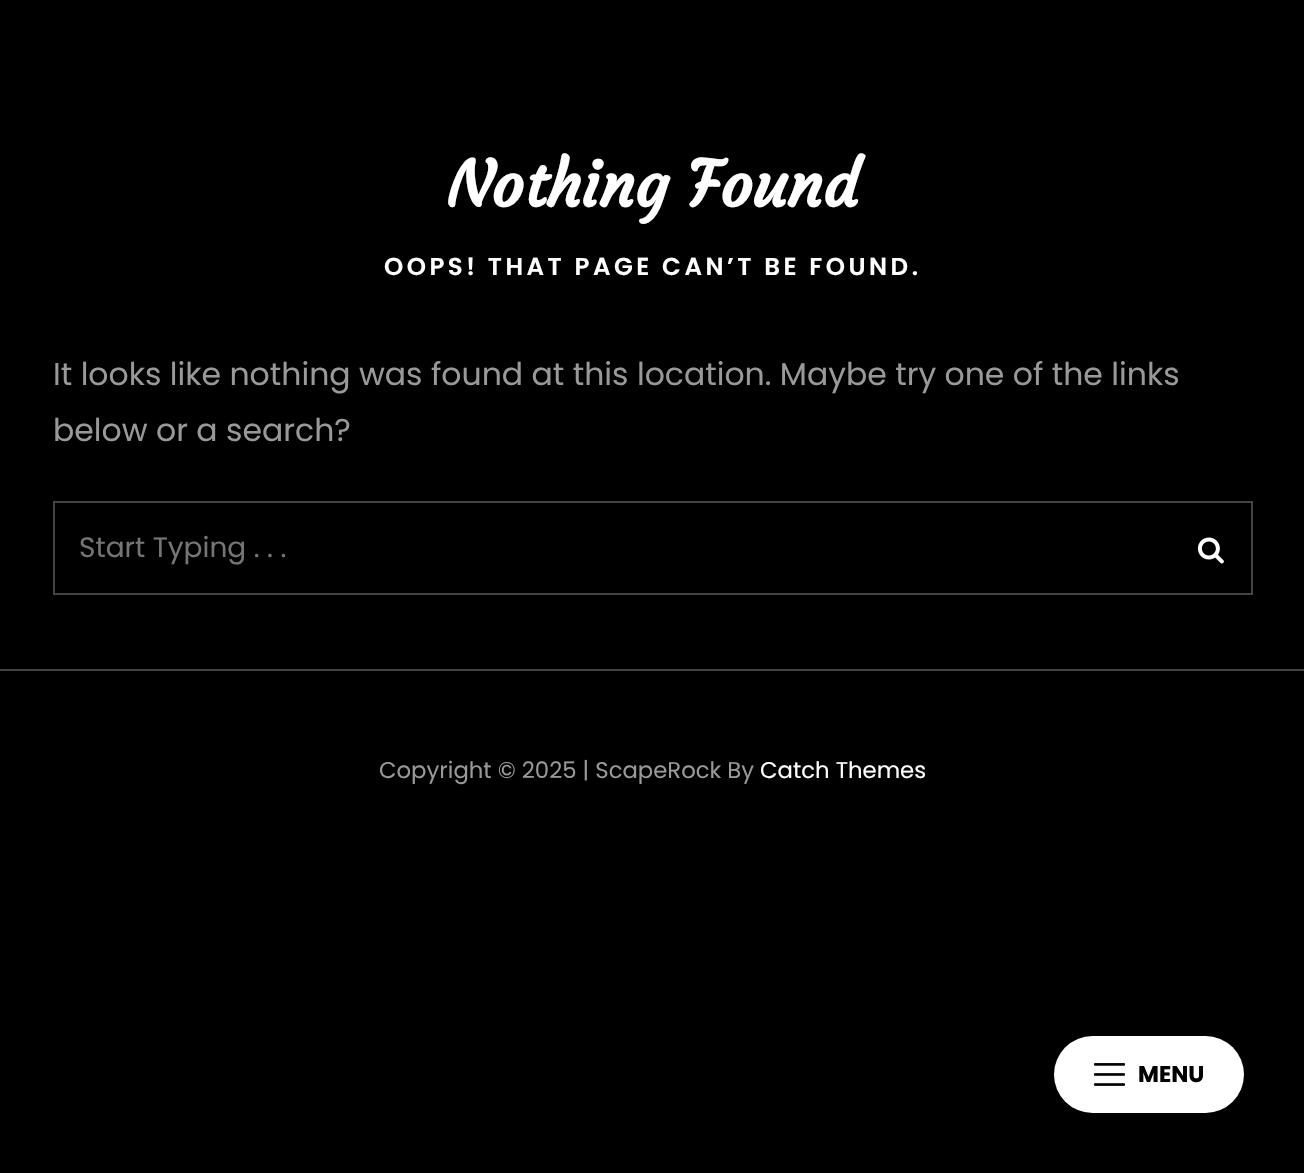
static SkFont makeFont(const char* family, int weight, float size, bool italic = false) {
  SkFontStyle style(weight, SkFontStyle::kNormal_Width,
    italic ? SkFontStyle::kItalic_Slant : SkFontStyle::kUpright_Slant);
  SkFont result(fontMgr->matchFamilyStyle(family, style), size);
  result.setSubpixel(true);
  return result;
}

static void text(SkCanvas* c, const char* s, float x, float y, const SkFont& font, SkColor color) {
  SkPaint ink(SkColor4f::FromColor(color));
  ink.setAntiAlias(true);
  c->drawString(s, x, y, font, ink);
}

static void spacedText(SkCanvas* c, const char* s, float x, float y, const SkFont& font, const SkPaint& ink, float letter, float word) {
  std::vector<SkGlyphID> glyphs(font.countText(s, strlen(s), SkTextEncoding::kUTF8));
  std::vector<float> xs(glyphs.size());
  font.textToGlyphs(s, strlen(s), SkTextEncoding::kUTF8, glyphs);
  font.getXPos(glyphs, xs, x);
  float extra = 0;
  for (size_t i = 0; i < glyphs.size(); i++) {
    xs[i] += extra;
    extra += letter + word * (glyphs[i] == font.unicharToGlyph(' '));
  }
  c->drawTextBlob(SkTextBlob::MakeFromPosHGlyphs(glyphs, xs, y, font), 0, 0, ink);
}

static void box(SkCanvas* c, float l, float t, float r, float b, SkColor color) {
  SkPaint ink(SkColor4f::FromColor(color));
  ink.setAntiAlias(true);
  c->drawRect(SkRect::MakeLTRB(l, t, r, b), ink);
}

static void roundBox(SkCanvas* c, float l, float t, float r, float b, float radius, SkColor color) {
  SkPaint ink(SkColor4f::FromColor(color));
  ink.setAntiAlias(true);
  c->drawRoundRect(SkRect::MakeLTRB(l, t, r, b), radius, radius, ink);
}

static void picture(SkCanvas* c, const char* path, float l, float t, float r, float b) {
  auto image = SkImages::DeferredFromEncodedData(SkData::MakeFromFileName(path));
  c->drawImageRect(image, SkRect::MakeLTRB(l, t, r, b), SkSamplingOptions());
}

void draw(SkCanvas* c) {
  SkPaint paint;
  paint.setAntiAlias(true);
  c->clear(0xff000000);
  SkFont face1 = makeFont("Courgette", 700, 63);
  text(c, "Nothing Found", 447, 207, face1, 0xffffffff);
  SkFont face2 = makeFont("Poppins", 600, 24.5f);
  paint.setColor(0xffffffff);
  spacedText(c, "OOPS! THAT PAGE CAN’T BE FOUND.", 384, 275, face2, paint, 3.5f, 0);
  SkFont face3 = makeFont("Poppins", 400, 31.5f);
  text(c, "It looks like nothing was found at this location. Maybe try one of the links", 53, 385, face3, 0xff999999);
  text(c, "below or a search?", 53, 441, face3, 0xff999999);
  paint.setStyle(SkPaint::kStroke_Style);
  paint.setStrokeWidth(2);
  paint.setColor(0xff444444);
  c->drawRect(SkRect::MakeLTRB(54, 502, 1252, 594), paint);
  SkFont face4 = makeFont("Poppins", 400, 28);
  text(c, "Start Typing . . .", 79, 557, face4, 0xff757575);
  picture(c, "img_01.png", 1197, 537, 1224, 564);
  box(c, 0, 669, 1304, 671, 0xff444444);
  SkFont face5 = makeFont("Poppins", 400, 22.75f);
  text(c, "Copyright © 2025 | ScapeRock By", 379, 778, face5, 0xff999999);
  text(c, "Catch Themes", 760, 778, face5, 0xffffffff);
  roundBox(c, 1054, 1036, 1244, 1113, 38.5f, 0xffffffff);
  picture(c, "img_02.png", 1094, 1063, 1125, 1086);
  SkFont face6 = makeFont("Poppins", 700, 22.75f);
  text(c, "MENU", 1138, 1082, face6, 0xff000000);
}
